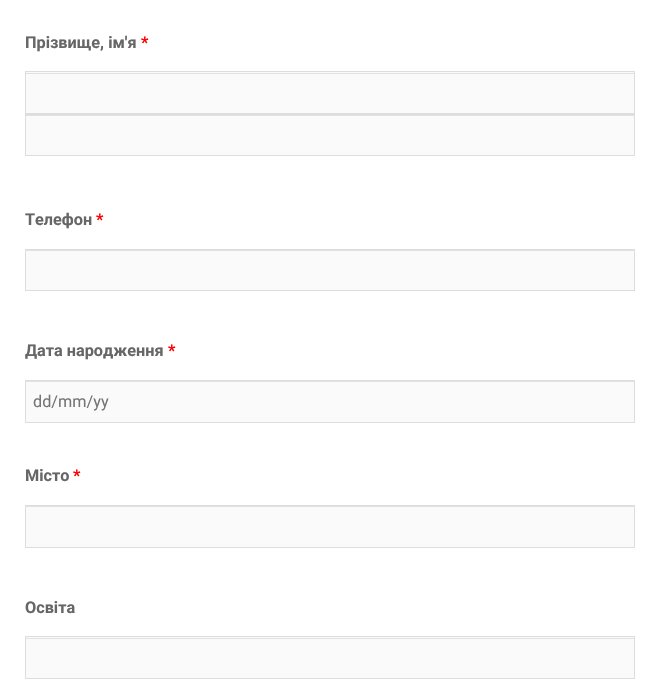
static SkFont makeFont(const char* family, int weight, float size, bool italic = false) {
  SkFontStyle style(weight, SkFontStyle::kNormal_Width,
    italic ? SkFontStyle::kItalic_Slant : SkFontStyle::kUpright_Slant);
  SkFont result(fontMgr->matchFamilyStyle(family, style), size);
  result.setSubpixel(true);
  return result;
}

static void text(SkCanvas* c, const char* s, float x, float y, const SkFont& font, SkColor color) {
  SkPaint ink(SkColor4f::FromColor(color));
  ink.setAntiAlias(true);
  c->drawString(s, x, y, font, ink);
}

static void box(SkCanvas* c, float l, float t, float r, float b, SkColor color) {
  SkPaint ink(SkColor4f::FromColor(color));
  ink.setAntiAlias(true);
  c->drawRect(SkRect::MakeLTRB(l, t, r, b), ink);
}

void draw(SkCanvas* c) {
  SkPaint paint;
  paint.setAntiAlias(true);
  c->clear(0xffffffff);
  SkFont face1 = makeFont("Roboto", 700, 16.25f);
  text(c, "Прізвище, ім'я", 25, 48, face1, 0xff666666);
  text(c, "*", 141, 48, face1, 0xffff0000);
  box(c, 26, 72, 634, 113, 0xfffafafa);
  box(c, 26, 73, 634, 74, 0xffe1e1e1);
  paint.setStyle(SkPaint::kStroke_Style);
  paint.setStrokeWidth(1);
  paint.setColor(0xffdddddd);
  c->drawRect(SkRect::MakeLTRB(25.5f, 71.5f, 634.5f, 113.5f), paint);
  box(c, 26, 116, 634, 155, 0xfffafafa);
  box(c, 26, 115, 634, 116, 0xffe1e1e1);
  c->drawRect(SkRect::MakeLTRB(25.5f, 114.5f, 634.5f, 155.5f), paint);
  text(c, "Телефон", 25, 225, face1, 0xff666666);
  text(c, "*", 96, 225, face1, 0xffff0000);
  box(c, 26, 251, 634, 290, 0xfffafafa);
  box(c, 26, 250, 634, 251, 0xffe1e1e1);
  c->drawRect(SkRect::MakeLTRB(25.5f, 249.5f, 634.5f, 290.5f), paint);
  text(c, "Дата народження", 25, 356, face1, 0xff666666);
  text(c, "*", 168, 356, face1, 0xffff0000);
  box(c, 26, 382, 634, 422, 0xfffafafa);
  box(c, 26, 381, 634, 382, 0xffe1e1e1);
  c->drawRect(SkRect::MakeLTRB(25.5f, 380.5f, 634.5f, 422.5f), paint);
  SkFont face2 = makeFont("Roboto", 400, 16.25f);
  text(c, "dd/mm/yy", 33, 407, face2, 0xff757575);
  text(c, "Місто", 25, 481, face1, 0xff666666);
  text(c, "*", 73, 481, face1, 0xffff0000);
  box(c, 26, 507, 634, 547, 0xfffafafa);
  box(c, 26, 506, 634, 507, 0xffe1e1e1);
  c->drawRect(SkRect::MakeLTRB(25.5f, 505.5f, 634.5f, 547.5f), paint);
  text(c, "Освіта", 25, 613, face1, 0xff666666);
  box(c, 26, 637, 634, 678, 0xfffafafa);
  box(c, 26, 638, 634, 639, 0xffe1e1e1);
  c->drawRect(SkRect::MakeLTRB(25.5f, 636.5f, 634.5f, 678.5f), paint);
}
